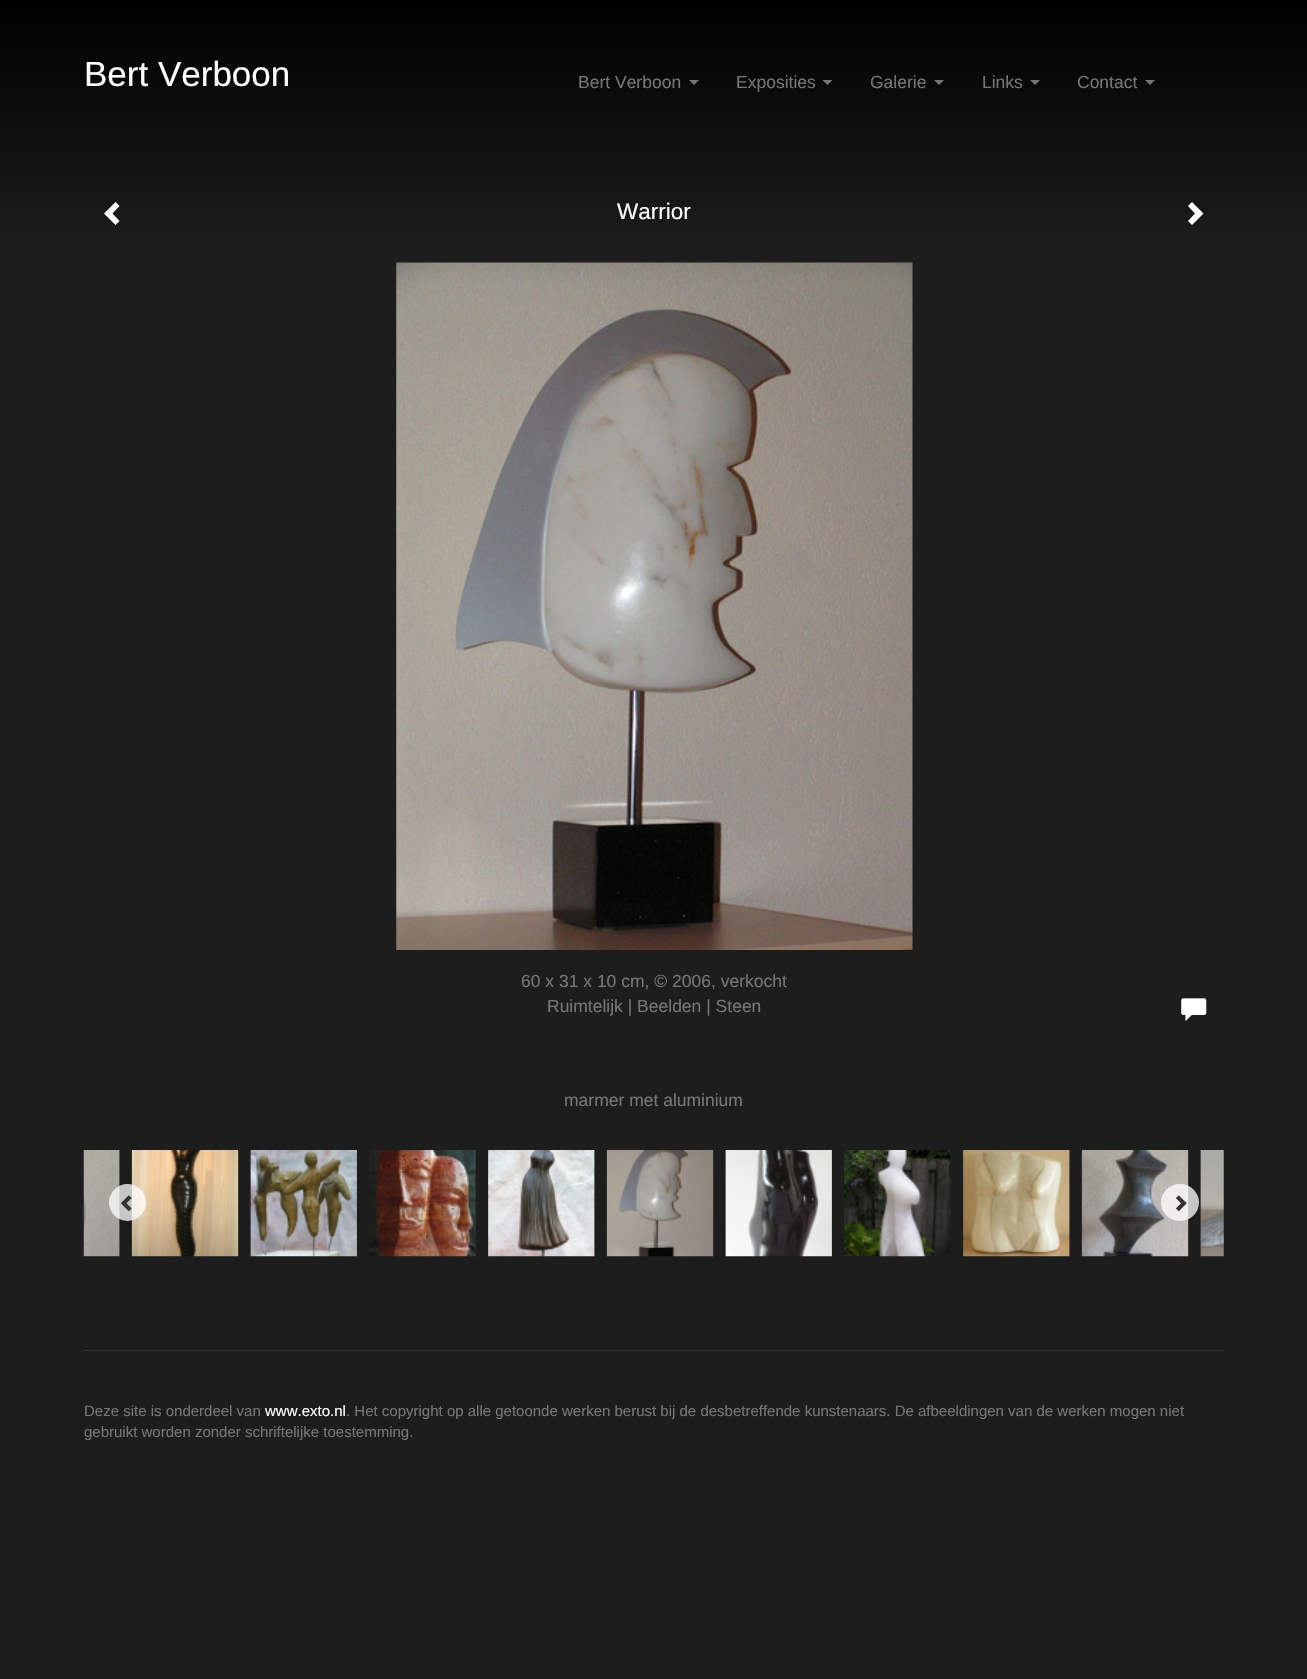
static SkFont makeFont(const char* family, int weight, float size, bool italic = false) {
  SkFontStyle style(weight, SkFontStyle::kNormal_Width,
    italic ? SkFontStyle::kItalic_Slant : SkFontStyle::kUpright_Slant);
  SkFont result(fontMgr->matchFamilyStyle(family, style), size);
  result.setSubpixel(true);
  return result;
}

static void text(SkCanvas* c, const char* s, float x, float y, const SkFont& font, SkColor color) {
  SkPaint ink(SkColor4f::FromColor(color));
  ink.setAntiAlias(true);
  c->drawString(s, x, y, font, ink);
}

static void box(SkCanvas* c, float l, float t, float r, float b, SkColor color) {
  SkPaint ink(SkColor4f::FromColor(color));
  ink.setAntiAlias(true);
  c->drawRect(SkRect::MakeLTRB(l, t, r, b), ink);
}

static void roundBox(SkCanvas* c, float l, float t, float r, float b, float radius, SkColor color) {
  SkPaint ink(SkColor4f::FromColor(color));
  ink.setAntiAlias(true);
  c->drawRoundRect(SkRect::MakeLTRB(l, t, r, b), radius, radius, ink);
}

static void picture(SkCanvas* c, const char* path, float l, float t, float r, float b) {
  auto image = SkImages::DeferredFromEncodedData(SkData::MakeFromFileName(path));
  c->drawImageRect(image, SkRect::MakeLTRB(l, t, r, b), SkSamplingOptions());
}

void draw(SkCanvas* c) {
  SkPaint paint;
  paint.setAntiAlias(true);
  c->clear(0xffffffff);
  {
    const SkColor colors[] = {0xff000000, 0xff1d1d1d};
    const float stops[] = {0, 0.15f};
    const SkPoint ends[] = {{654, 0}, {654, 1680}};
    paint.setShader(SkGradientShader::MakeLinear(ends, colors, stops, 2, SkTileMode::kClamp));
    paint.setAlpha(255);
  }
  c->drawRect(SkRect::MakeLTRB(0, 0, 1307, 1679), paint);
  SkFont face1 = makeFont("Liberation Sans", 400, 35);
  text(c, "Bert Verboon", 84, 86, face1, 0xffffffff);
  SkFont face2 = makeFont("Liberation Sans", 400, 17.5f);
  text(c, "Bert Verboon", 578, 88, face2, 0xff777777);
  paint.setShader(nullptr);
  paint.setColor(0xff777777);
  c->drawPath(SkPathBuilder().moveTo(689, 80).lineTo(699, 80).lineTo(694, 85).close().detach(), paint);
  text(c, "Exposities", 736, 88, face2, 0xff777777);
  c->drawPath(SkPathBuilder().moveTo(822.5f, 80).lineTo(832.5f, 80).lineTo(827.5f, 85).close().detach(), paint);
  text(c, "Galerie", 870, 88, face2, 0xff777777);
  c->drawPath(SkPathBuilder().moveTo(934, 80).lineTo(944, 80).lineTo(939, 85).close().detach(), paint);
  text(c, "Links", 982, 88, face2, 0xff777777);
  c->drawPath(SkPathBuilder().moveTo(1030, 80).lineTo(1040, 80).lineTo(1035, 85).close().detach(), paint);
  text(c, "Contact", 1077, 88, face2, 0xff777777);
  c->drawPath(SkPathBuilder().moveTo(1145, 80).lineTo(1155, 80).lineTo(1150, 85).close().detach(), paint);
  paint.setColor(0xffffffff);
  c->drawPath(SkPathBuilder().moveTo(119.5f, 206).lineTo(112.5f, 213.5f).lineTo(119.5f, 221).lineTo(115.5f, 225).lineTo(104, 213.5f).lineTo(115.5f, 202).close().detach(), paint);
  SkFont face3 = makeFont("Liberation Sans", 400, 22.5f);
  text(c, "Warrior", 617, 219, face3, 0xffffffff);
  c->drawPath(SkPathBuilder().moveTo(1203.5f, 213.5f).lineTo(1192, 225).lineTo(1188, 221).lineTo(1195, 213.5f).lineTo(1188, 206).lineTo(1192, 202).close().detach(), paint);
  picture(c, "img_01.png", 396, 262, 913, 950);
  text(c, "60 x 31 x 10 cm, © 2006, verkocht", 521, 987, face2, 0xff777777);
  text(c, "Ruimtelijk | Beelden | Steen", 547, 1012, face2, 0xff777777);
  picture(c, "img_02.png", 1181, 998, 1207, 1022);
  text(c, "marmer met aluminium", 564, 1106, face2, 0xff777777);
  picture(c, "img_03.png", 83, 1150, 120, 1257);
  picture(c, "img_04.png", 131, 1150, 239, 1257);
  picture(c, "img_05.png", 250, 1150, 357, 1257);
  picture(c, "img_06.png", 369, 1150, 476, 1257);
  picture(c, "img_07.png", 488, 1150, 595, 1257);
  picture(c, "img_08.png", 606, 1150, 714, 1257);
  picture(c, "img_09.png", 725, 1150, 832, 1257);
  picture(c, "img_10.png", 844, 1150, 951, 1257);
  picture(c, "img_11.png", 963, 1150, 1070, 1257);
  picture(c, "img_12.png", 1081, 1150, 1189, 1257);
  picture(c, "img_13.png", 1200, 1150, 1224, 1257);
  paint.setColor(0xbfffffff);
  c->drawCircle(127.5f, 1202.5f, 18.5f, paint);
  picture(c, "img_14.png", 120, 1195, 132, 1212);
  roundBox(c, 1161, 1184, 1199, 1221, 18.5f, 0xbfffffff);
  picture(c, "img_15.png", 1175, 1195, 1187, 1212);
  box(c, 84, 1350, 1224, 1351, 0xff313131);
  SkFont face4 = makeFont("Liberation Sans", 400, 15);
  text(c, "Deze site is onderdeel van", 84, 1416, face4, 0xff777777);
  text(c, "www.exto.nl", 265, 1416, face4, 0xffffffff);
  text(c, ". Het copyright op alle getoonde werken berust bij de desbetreffende kunstenaars. De afbeeldingen van de werken mogen niet", 346, 1416, face4, 0xff777777);
  text(c, "gebruikt worden zonder schriftelijke toestemming.", 84, 1437, face4, 0xff777777);
}
